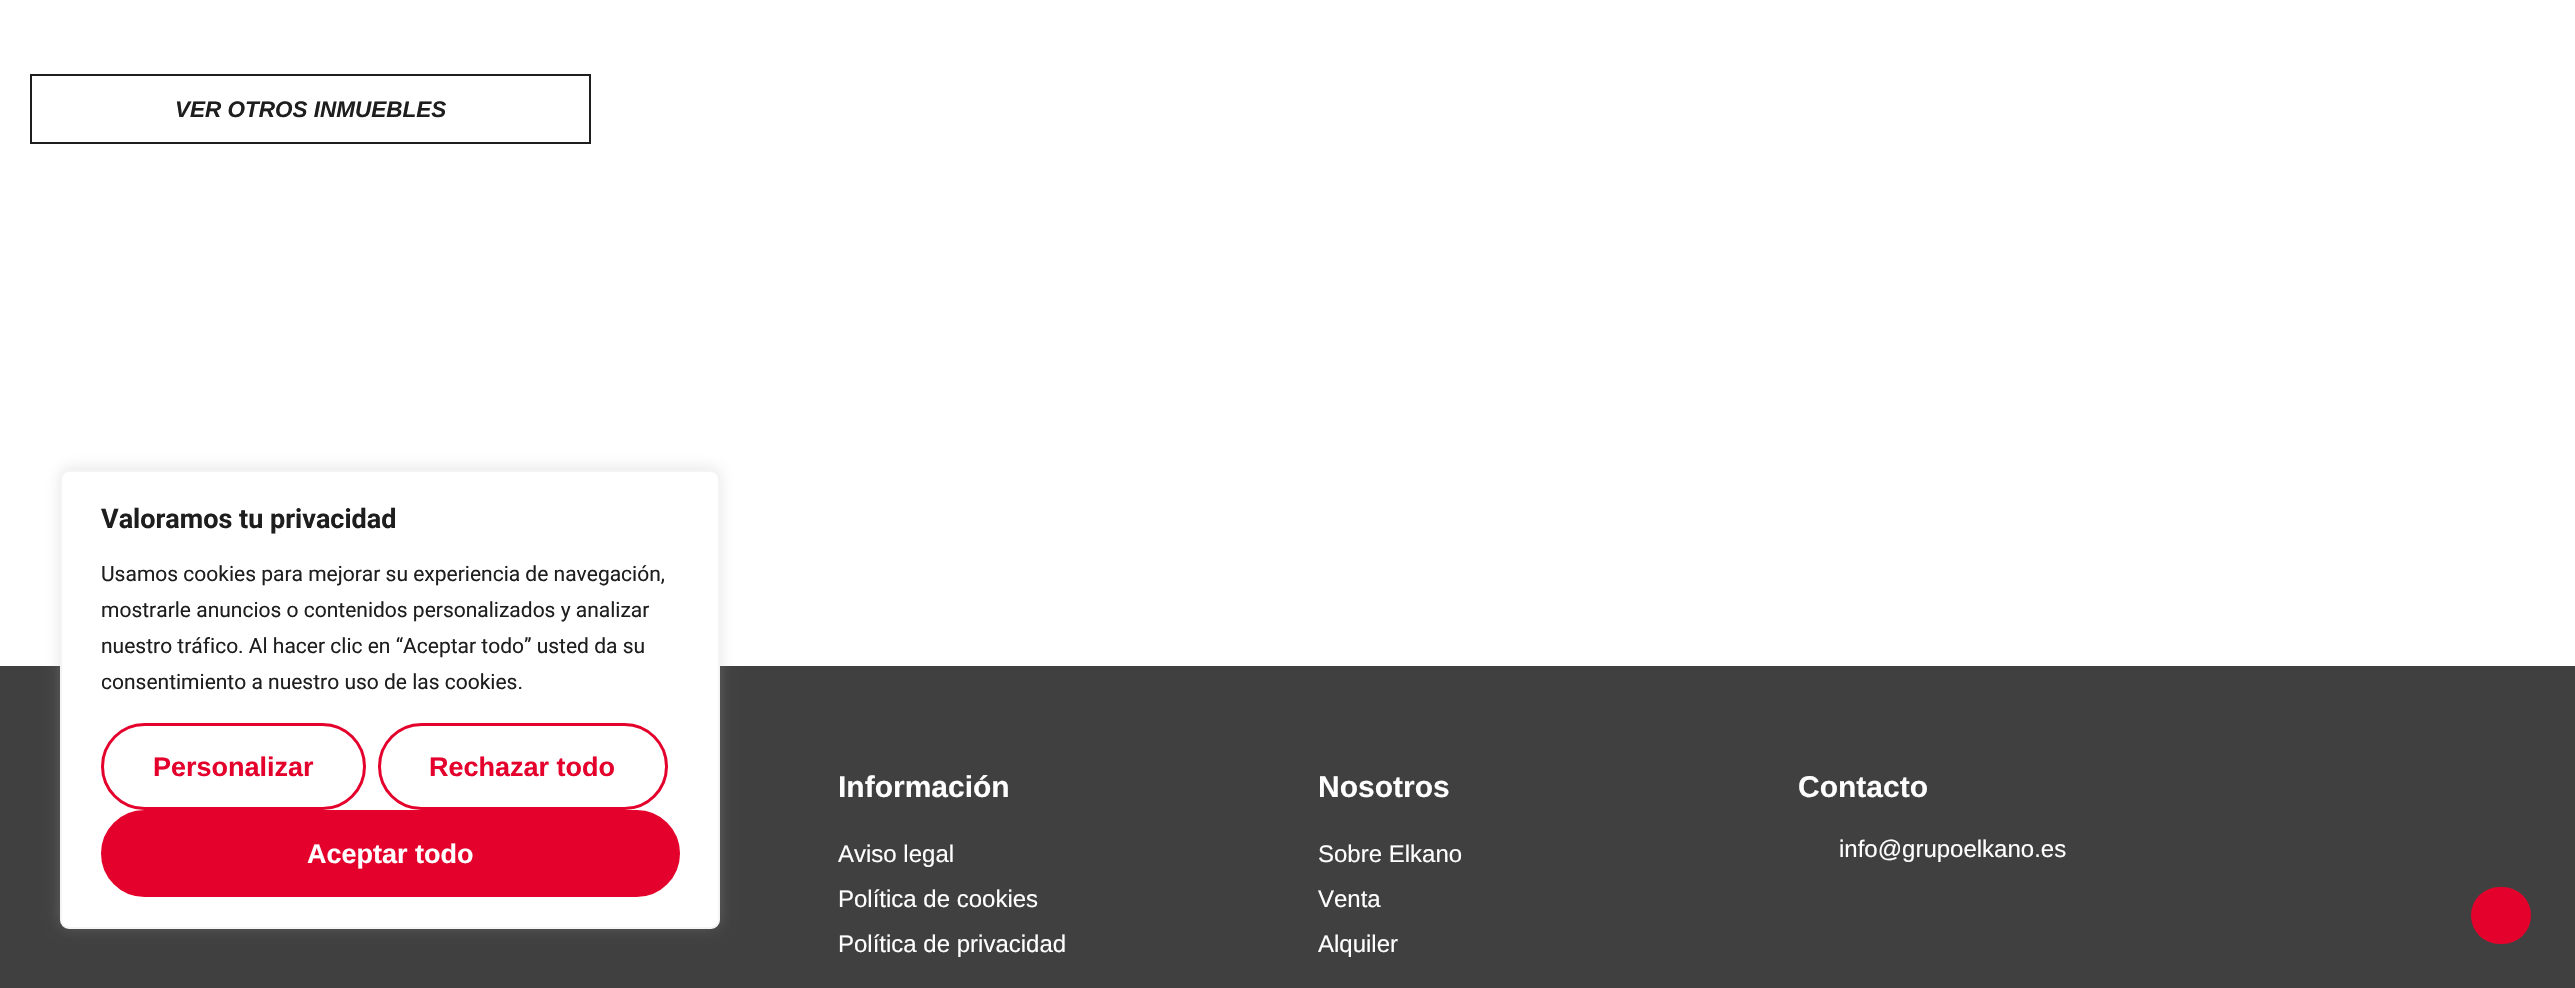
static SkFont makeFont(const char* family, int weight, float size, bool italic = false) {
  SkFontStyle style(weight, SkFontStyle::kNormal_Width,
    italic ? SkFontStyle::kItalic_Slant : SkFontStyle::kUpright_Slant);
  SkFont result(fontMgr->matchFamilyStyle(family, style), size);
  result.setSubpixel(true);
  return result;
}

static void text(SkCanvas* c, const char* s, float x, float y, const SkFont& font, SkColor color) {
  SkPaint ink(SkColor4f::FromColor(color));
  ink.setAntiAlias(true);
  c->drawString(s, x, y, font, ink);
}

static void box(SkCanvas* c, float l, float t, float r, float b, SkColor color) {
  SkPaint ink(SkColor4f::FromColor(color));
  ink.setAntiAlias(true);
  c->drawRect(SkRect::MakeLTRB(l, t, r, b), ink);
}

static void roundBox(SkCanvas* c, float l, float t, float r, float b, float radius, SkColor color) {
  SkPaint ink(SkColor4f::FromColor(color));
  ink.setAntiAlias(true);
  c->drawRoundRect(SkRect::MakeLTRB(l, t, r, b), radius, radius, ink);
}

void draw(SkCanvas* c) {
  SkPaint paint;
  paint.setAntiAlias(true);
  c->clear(0xffffffff);
  paint.setStyle(SkPaint::kStroke_Style);
  paint.setStrokeWidth(2);
  paint.setColor(0xff1e1e1e);
  c->drawRect(SkRect::MakeLTRB(31, 75, 590, 143), paint);
  SkFont face1 = makeFont("Liberation Sans", 700, 22.5f, true);
  text(c, "VER OTROS INMUEBLES", 175, 117, face1, 0xff1e1e1e);
  box(c, 0, 666, 2575, 988, 0xff404040);
  paint.setStyle(SkPaint::kFill_Style);
  paint.setColor(0x4dacabab);
  paint.setMaskFilter(SkMaskFilter::MakeBlur(kNormal_SkBlurStyle, 7.5f));
  c->drawRoundRect(SkRect::MakeLTRB(60, 468, 720, 927), 9, 9, paint);
  paint.setMaskFilter(nullptr);
  paint.setColor(0xffffffff);
  c->drawRoundRect(SkRect::MakeLTRB(61, 471, 719, 928), 8, 8, paint);
  paint.setStyle(SkPaint::kStroke_Style);
  paint.setColor(0xfff4f4f4);
  c->drawRoundRect(SkRect::MakeLTRB(61, 471, 719, 928), 8, 8, paint);
  SkFont face2 = makeFont("Roboto", 700, 27);
  text(c, "Valoramos tu privacidad", 101, 528, face2, 0xff1e1e1e);
  SkFont face3 = makeFont("Roboto", 400, 21);
  text(c, "Usamos cookies para mejorar su experiencia de navegación,", 101, 581, face3, 0xff1e1e1e);
  text(c, "mostrarle anuncios o contenidos personalizados y analizar", 101, 617, face3, 0xff1e1e1e);
  text(c, "nuestro tráfico. Al hacer clic en “Aceptar todo” usted da su", 101, 653, face3, 0xff1e1e1e);
  text(c, "consentimiento a nuestro uso de las cookies.", 101, 689, face3, 0xff1e1e1e);
  paint.setStrokeWidth(3);
  paint.setColor(0xffe4012c);
  c->drawRoundRect(SkRect::MakeLTRB(102.5f, 724.5f, 364.5f, 808.5f), 42, 42, paint);
  SkFont face4 = makeFont("Liberation Sans", 700, 27);
  text(c, "Personalizar", 153, 776, face4, 0xffe4012c);
  c->drawRoundRect(SkRect::MakeLTRB(379.5f, 724.5f, 666.5f, 808.5f), 42, 42, paint);
  text(c, "Rechazar todo", 429, 776, face4, 0xffe4012c);
  paint.setStyle(SkPaint::kFill_Style);
  c->drawRoundRect(SkRect::MakeLTRB(102.5f, 811.5f, 678.5f, 895.5f), 42, 42, paint);
  paint.setStyle(SkPaint::kStroke_Style);
  c->drawRoundRect(SkRect::MakeLTRB(102.5f, 811.5f, 678.5f, 895.5f), 42, 42, paint);
  text(c, "Aceptar todo", 307, 863, face4, 0xffffffff);
  SkFont face5 = makeFont("Liberation Sans", 700, 30);
  text(c, "Información", 838, 797, face5, 0xffffffff);
  SkFont face6 = makeFont("Liberation Sans", 400, 24);
  text(c, "Aviso legal", 838, 862, face6, 0xffffffff);
  text(c, "Política de cookies", 838, 907, face6, 0xffffffff);
  text(c, "Política de privacidad", 838, 952, face6, 0xffffffff);
  text(c, "Nosotros", 1318, 797, face5, 0xffffffff);
  text(c, "Sobre Elkano", 1318, 862, face6, 0xffffffff);
  text(c, "Venta", 1318, 907, face6, 0xffffffff);
  text(c, "Alquiler", 1318, 952, face6, 0xffffffff);
  text(c, "Contacto", 1798, 797, face5, 0xffffffff);
  text(c, "info@grupoelkano.es", 1839, 857, face6, 0xffffffff);
  roundBox(c, 2471, 887, 2531, 944, 28.5f, 0xffe4012c);
}
